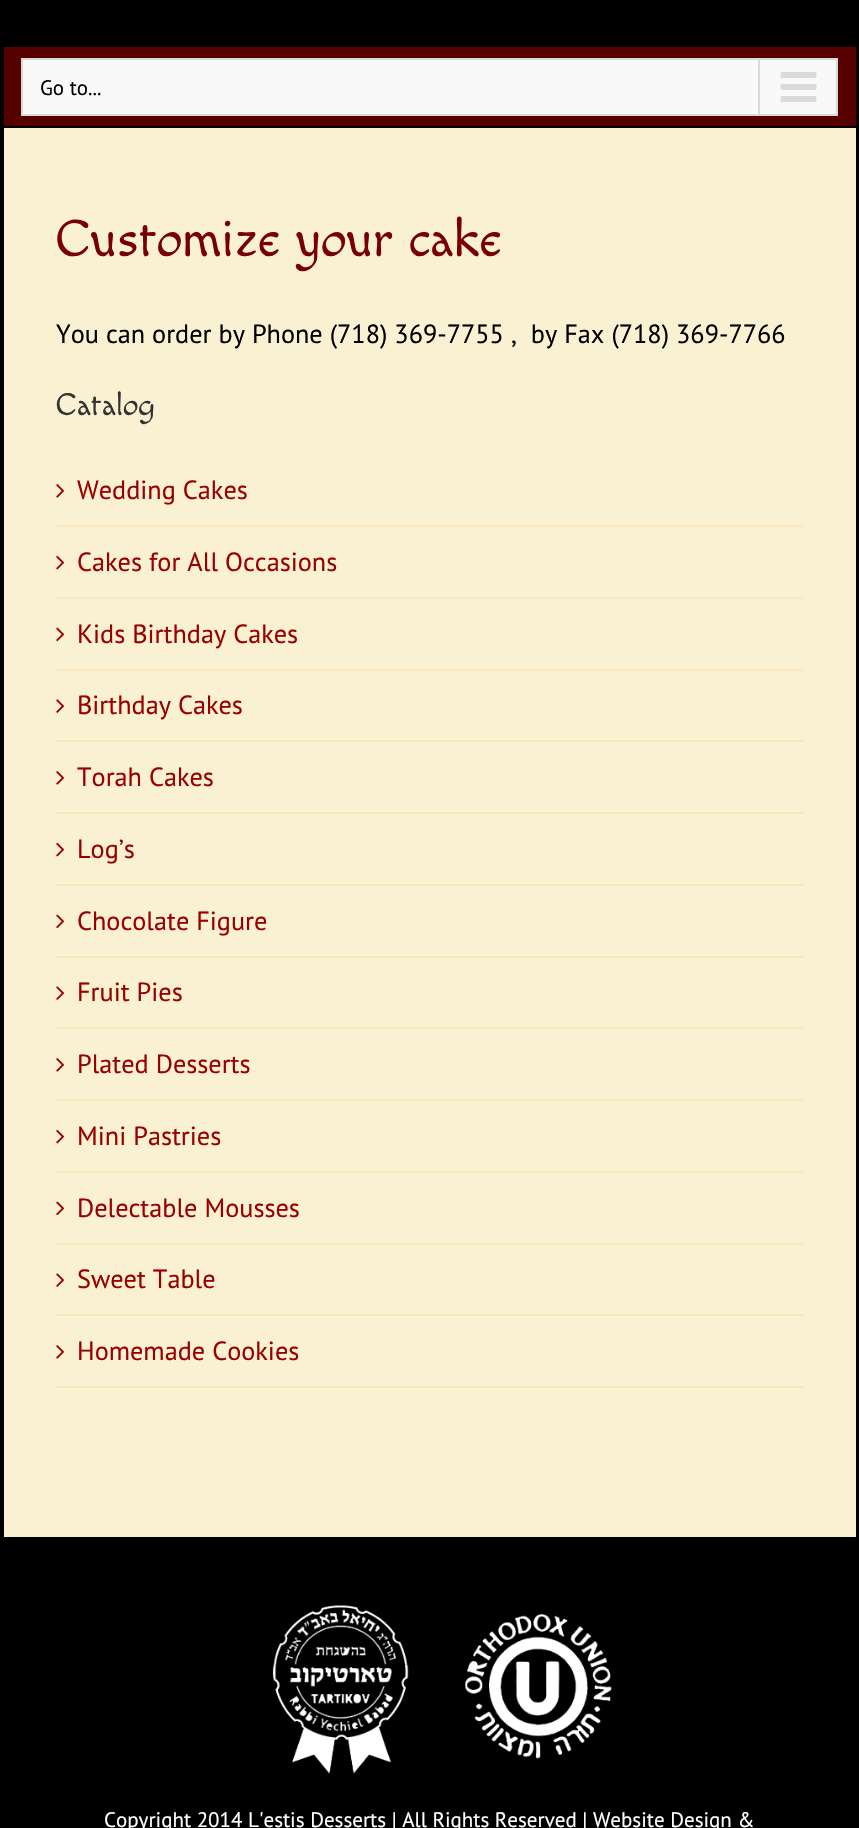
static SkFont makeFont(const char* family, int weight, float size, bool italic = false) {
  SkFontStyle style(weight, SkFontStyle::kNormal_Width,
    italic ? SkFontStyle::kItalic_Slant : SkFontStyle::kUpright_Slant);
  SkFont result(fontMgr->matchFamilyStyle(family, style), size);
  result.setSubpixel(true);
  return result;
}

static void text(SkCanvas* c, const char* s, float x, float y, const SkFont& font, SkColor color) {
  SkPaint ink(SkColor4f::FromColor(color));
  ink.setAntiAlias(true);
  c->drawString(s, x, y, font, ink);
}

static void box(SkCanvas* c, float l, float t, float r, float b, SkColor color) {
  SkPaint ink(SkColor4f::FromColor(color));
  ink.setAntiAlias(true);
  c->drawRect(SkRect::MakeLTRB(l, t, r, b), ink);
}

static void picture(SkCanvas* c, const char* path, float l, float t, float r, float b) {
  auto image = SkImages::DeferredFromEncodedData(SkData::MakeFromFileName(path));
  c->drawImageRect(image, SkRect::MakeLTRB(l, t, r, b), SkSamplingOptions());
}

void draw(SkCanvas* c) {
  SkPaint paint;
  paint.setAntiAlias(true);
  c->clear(0xffffffff);
  paint.setStyle(SkPaint::kStroke_Style);
  paint.setStrokeWidth(4);
  paint.setColor(0xff000000);
  c->drawRect(SkRect::MakeLTRB(2, -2, 857, 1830), paint);
  box(c, 4, 0, 855, 46, 0xff000000);
  box(c, 4, 46, 856, 47, 0xff000000);
  box(c, 4, 47, 856, 126, 0xff570000);
  box(c, 4, 126, 856, 128, 0xff000000);
  paint.setStyle(SkPaint::kFill_Style);
  paint.setColor(0xfff9f9f9);
  c->drawRect(SkRect::MakeLTRB(22, 59, 837, 115), paint);
  paint.setStyle(SkPaint::kStroke_Style);
  paint.setStrokeWidth(2);
  paint.setColor(0xffdadada);
  c->drawRect(SkRect::MakeLTRB(22, 59, 837, 115), paint);
  SkFont face1 = makeFont("PT Sans", 400, 21);
  text(c, "Go to...", 40, 95, face1, 0xff000000);
  box(c, 758, 60, 760, 114, 0xffdadada);
  picture(c, "img_01.png", 780, 72, 817, 102);
  box(c, 4, 128, 856, 1537, 0xfffaf1d2);
  SkFont face2 = makeFont("Macondo", 400, 52.5f);
  text(c, "Customize your cake", 56, 256, face2, 0xff780000);
  SkFont face3 = makeFont("PT Sans", 400, 26.25f);
  text(c, "You can order by Phone (718) 369-7755 ,  by Fax (718) 369-7766", 56, 343, face3, 0xff000000);
  SkFont face4 = makeFont("Macondo", 400, 31.5f);
  text(c, "Catalog", 56, 415, face4, 0xff333333);
  box(c, 56, 525, 803, 527, 0xfffae8b9);
  picture(c, "img_02.png", 56, 484, 65, 498);
  text(c, "Wedding Cakes", 77, 499, face3, 0xff990000);
  box(c, 56, 597, 803, 599, 0xfffae8b9);
  picture(c, "img_03.png", 56, 555, 65, 570);
  text(c, "Cakes for All Occasions", 77, 571, face3, 0xff990000);
  box(c, 56, 669, 803, 671, 0xfffae8b9);
  picture(c, "img_04.png", 56, 627, 65, 642);
  text(c, "Kids Birthday Cakes", 77, 643, face3, 0xff990000);
  box(c, 56, 740, 803, 742, 0xfffae8b9);
  picture(c, "img_05.png", 56, 699, 65, 713);
  text(c, "Birthday Cakes", 77, 714, face3, 0xff990000);
  box(c, 56, 812, 803, 814, 0xfffae8b9);
  picture(c, "img_02.png", 56, 771, 65, 785);
  text(c, "Torah Cakes", 77, 786, face3, 0xff990000);
  box(c, 56, 884, 803, 886, 0xfffae8b9);
  picture(c, "img_03.png", 56, 842, 65, 857);
  text(c, "Log’s", 77, 858, face3, 0xff990000);
  box(c, 56, 956, 803, 958, 0xfffae8b9);
  picture(c, "img_04.png", 56, 914, 65, 929);
  text(c, "Chocolate Figure", 77, 930, face3, 0xff990000);
  box(c, 56, 1027, 803, 1029, 0xfffae8b9);
  picture(c, "img_05.png", 56, 986, 65, 1000);
  text(c, "Fruit Pies", 77, 1001, face3, 0xff990000);
  box(c, 56, 1099, 803, 1101, 0xfffae8b9);
  picture(c, "img_02.png", 56, 1058, 65, 1072);
  text(c, "Plated Desserts", 77, 1073, face3, 0xff990000);
  box(c, 56, 1171, 803, 1173, 0xfffae8b9);
  picture(c, "img_03.png", 56, 1129, 65, 1144);
  text(c, "Mini Pastries", 77, 1145, face3, 0xff990000);
  box(c, 56, 1243, 803, 1245, 0xfffae8b9);
  picture(c, "img_04.png", 56, 1201, 65, 1216);
  text(c, "Delectable Mousses", 77, 1217, face3, 0xff990000);
  box(c, 56, 1314, 803, 1316, 0xfffae8b9);
  picture(c, "img_05.png", 56, 1273, 65, 1287);
  text(c, "Sweet Table", 77, 1288, face3, 0xff990000);
  box(c, 56, 1386, 803, 1388, 0xfffae8b9);
  picture(c, "img_02.png", 56, 1345, 65, 1359);
  text(c, "Homemade Cookies", 77, 1360, face3, 0xff990000);
  box(c, 4, 1537, 855, 1828, 0xff000000);
  picture(c, "img_06.png", 272, 1605, 612, 1774);
  text(c, "Copyright 2014 L'estis Desserts | All Rights Reserved | Website Design &", 104, 1827, face1, 0xffffffff);
}
